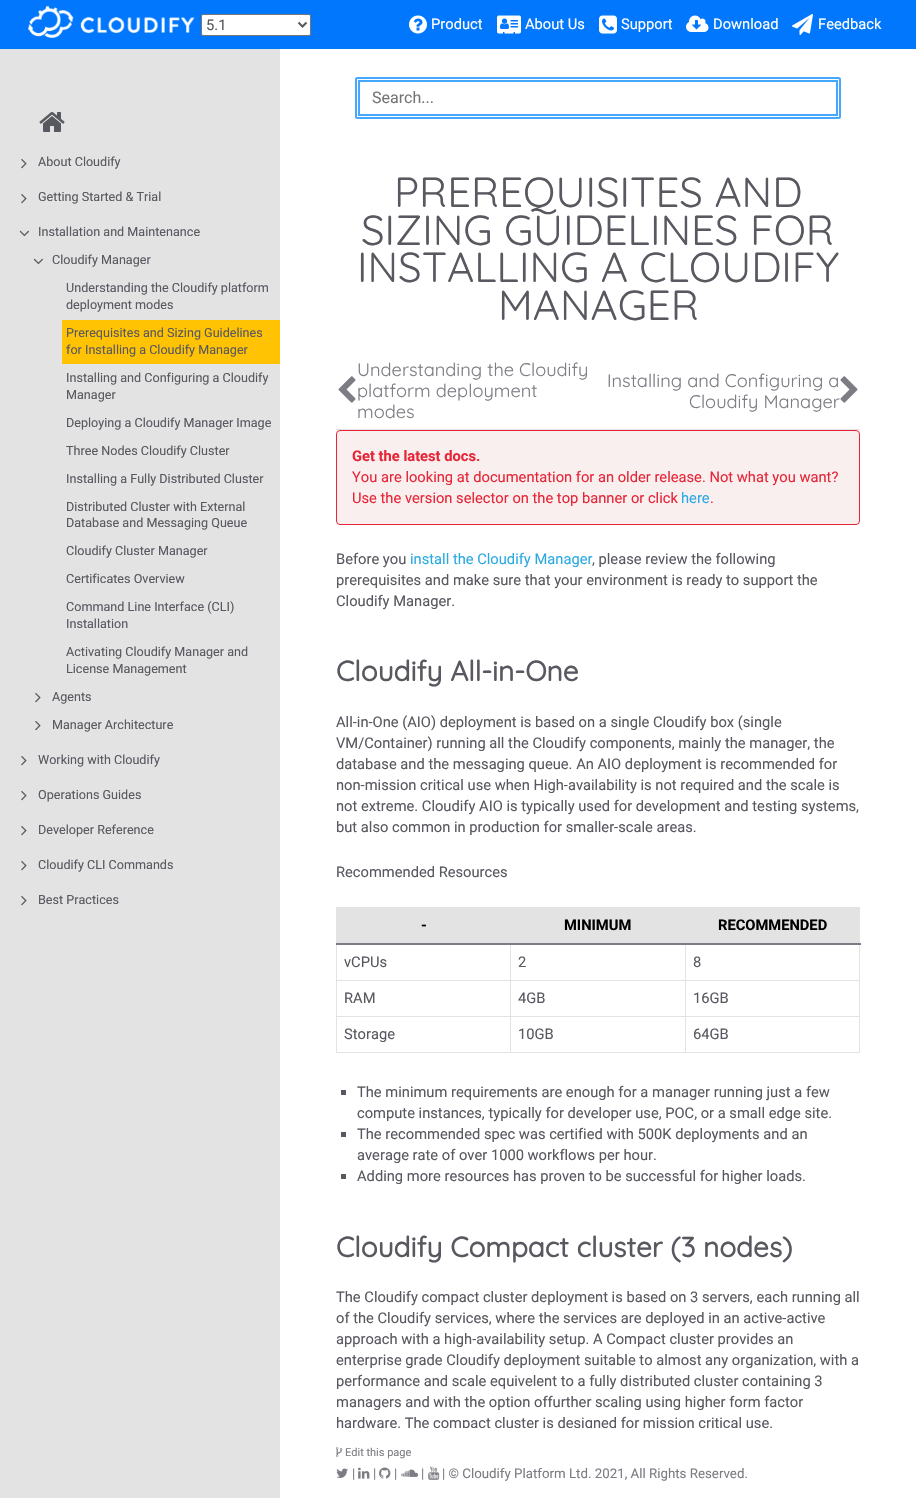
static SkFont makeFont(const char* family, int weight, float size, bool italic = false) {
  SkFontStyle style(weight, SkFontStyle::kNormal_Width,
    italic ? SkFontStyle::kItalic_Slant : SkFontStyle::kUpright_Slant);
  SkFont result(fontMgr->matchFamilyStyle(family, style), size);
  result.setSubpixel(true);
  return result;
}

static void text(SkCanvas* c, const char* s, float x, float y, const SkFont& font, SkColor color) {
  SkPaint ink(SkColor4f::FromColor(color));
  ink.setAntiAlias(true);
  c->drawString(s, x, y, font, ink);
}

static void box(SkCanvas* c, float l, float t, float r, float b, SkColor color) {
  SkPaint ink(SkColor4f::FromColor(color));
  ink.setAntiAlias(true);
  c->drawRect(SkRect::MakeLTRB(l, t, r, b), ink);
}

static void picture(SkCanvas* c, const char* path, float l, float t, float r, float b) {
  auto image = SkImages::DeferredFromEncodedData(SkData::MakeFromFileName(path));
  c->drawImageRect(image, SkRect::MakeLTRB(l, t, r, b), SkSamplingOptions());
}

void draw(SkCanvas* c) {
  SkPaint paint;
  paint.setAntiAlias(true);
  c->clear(0xffffffff);
  box(c, 0, 0, 916, 49, 0xff0077fc);
  picture(c, "img_01.png", 28, 5, 195, 38);
  paint.setColor(0xffffffff);
  c->drawRoundRect(SkRect::MakeLTRB(201.5f, 14.5f, 310.5f, 35.5f), 1.5f, 1.5f, paint);
  paint.setStyle(SkPaint::kStroke_Style);
  paint.setStrokeWidth(1);
  paint.setColor(0xff767676);
  c->drawRoundRect(SkRect::MakeLTRB(201.5f, 14.5f, 310.5f, 35.5f), 1.5f, 1.5f, paint);
  paint.setStrokeWidth(2);
  paint.setColor(0xff585860);
  c->drawPath(SkPathBuilder().moveTo(298.5f, 22.5f).lineTo(302.5f, 26.5f).lineTo(306.5f, 22.5f).detach(), paint);
  SkFont face1 = makeFont("Roboto", 400, 14.7f);
  text(c, "5.1", 206, 30, face1, 0xff585860);
  picture(c, "img_02.png", 409, 15, 427, 34);
  text(c, "Product", 431, 29, face1, 0xffffffff);
  picture(c, "img_03.png", 497, 15, 521, 34);
  text(c, "About Us", 525, 29, face1, 0xffffffff);
  picture(c, "img_04.png", 599, 15, 617, 34);
  text(c, "Support", 621, 29, face1, 0xffffffff);
  picture(c, "img_05.png", 686, 15, 709, 32);
  text(c, "Download", 713, 29, face1, 0xffffffff);
  picture(c, "img_06.png", 792, 14, 813, 35);
  text(c, "Feedback", 818, 29, face1, 0xffffffff);
  box(c, 0, 49, 280, 1498, 0xffe3e3e3);
  picture(c, "img_07.png", 39, 112, 65, 132);
  picture(c, "img_08.png", 21, 159, 27, 169);
  SkFont face2 = makeFont("Roboto", 400, 12.6f);
  text(c, "About Cloudify", 38, 166, face2, 0xff585860);
  picture(c, "img_08.png", 21, 194, 27, 204);
  text(c, "Getting Started & Trial", 38, 201, face2, 0xff585860);
  picture(c, "img_09.png", 19, 230, 29, 237);
  text(c, "Installation and Maintenance", 38, 236, face2, 0xff585860);
  picture(c, "img_09.png", 33, 258, 43, 265);
  text(c, "Cloudify Manager", 52, 264, face2, 0xff585860);
  text(c, "Understanding the Cloudify platform", 66, 292, face2, 0xff585860);
  text(c, "deployment modes", 66, 309, face2, 0xff585860);
  box(c, 62, 320, 280, 364, 0xffffc304);
  text(c, "Prerequisites and Sizing Guidelines", 66, 337, face2, 0xff585860);
  text(c, "for Installing a Cloudify Manager", 66, 354, face2, 0xff585860);
  text(c, "Installing and Configuring a Cloudify", 66, 382, face2, 0xff585860);
  text(c, "Manager", 66, 399, face2, 0xff585860);
  text(c, "Deploying a Cloudify Manager Image", 66, 427, face2, 0xff585860);
  text(c, "Three Nodes Cloudify Cluster", 66, 455, face2, 0xff585860);
  text(c, "Installing a Fully Distributed Cluster", 66, 483, face2, 0xff585860);
  text(c, "Distributed Cluster with External", 66, 511, face2, 0xff585860);
  text(c, "Database and Messaging Queue", 66, 527, face2, 0xff585860);
  text(c, "Cloudify Cluster Manager", 66, 555, face2, 0xff585860);
  text(c, "Certificates Overview", 66, 583, face2, 0xff585860);
  text(c, "Command Line Interface (CLI)", 66, 611, face2, 0xff585860);
  text(c, "Installation", 66, 628, face2, 0xff585860);
  text(c, "Activating Cloudify Manager and", 66, 656, face2, 0xff585860);
  text(c, "License Management", 66, 673, face2, 0xff585860);
  picture(c, "img_08.png", 35, 693, 41, 703);
  text(c, "Agents", 52, 701, face2, 0xff585860);
  picture(c, "img_08.png", 35, 721, 41, 731);
  text(c, "Manager Architecture", 52, 729, face2, 0xff585860);
  picture(c, "img_08.png", 21, 756, 27, 766);
  text(c, "Working with Cloudify", 38, 764, face2, 0xff585860);
  picture(c, "img_08.png", 21, 791, 27, 801);
  text(c, "Operations Guides", 38, 799, face2, 0xff585860);
  picture(c, "img_08.png", 21, 826, 27, 836);
  text(c, "Developer Reference", 38, 834, face2, 0xff585860);
  picture(c, "img_08.png", 21, 861, 27, 871);
  text(c, "Cloudify CLI Commands", 38, 869, face2, 0xff585860);
  picture(c, "img_08.png", 21, 896, 27, 906);
  text(c, "Best Practices", 38, 904, face2, 0xff585860);
  paint.setColor(0xff45a7ff);
  c->drawRoundRect(SkRect::MakeLTRB(356, 78, 840, 118), 1.5f, 1.5f, paint);
  c->drawRect(SkRect::MakeLTRB(359, 81, 837, 115), paint);
  SkFont face3 = makeFont("Roboto", 400, 16);
  text(c, "Search...", 372, 103, face3, 0xff757575);
  SkFont face4 = makeFont("Quicksand", 300, 42);
  text(c, "PREREQUISITES AND", 394, 207, face4, 0xff585860);
  text(c, "SIZING GUIDELINES FOR", 361, 245, face4, 0xff585860);
  text(c, "INSTALLING A CLOUDIFY", 357, 282, face4, 0xff585860);
  text(c, "MANAGER", 498, 320, face4, 0xff585860);
  box(c, 336, 429, 860, 430, 0xffe3e3e3);
  picture(c, "img_10.png", 338, 376, 356, 403);
  SkFont face5 = makeFont("Quicksand", 300, 18.25f);
  text(c, "Understanding the Cloudify", 357, 376, face5, 0xff7c7c84);
  text(c, "platform deployment", 357, 397, face5, 0xff7c7c84);
  text(c, "modes", 357, 418, face5, 0xff7c7c84);
  text(c, "Installing and Configuring a", 607, 387, face5, 0xff7c7c84);
  text(c, "Cloudify Manager", 689, 408, face5, 0xff7c7c84);
  picture(c, "img_11.png", 840, 376, 858, 403);
  paint.setStyle(SkPaint::kFill_Style);
  paint.setColor(0xfff9efef);
  c->drawRoundRect(SkRect::MakeLTRB(336.5f, 430.5f, 859.5f, 524.5f), 3.5f, 3.5f, paint);
  paint.setStyle(SkPaint::kStroke_Style);
  paint.setStrokeWidth(1);
  paint.setColor(0xffe72537);
  c->drawRoundRect(SkRect::MakeLTRB(336.5f, 430.5f, 859.5f, 524.5f), 3.5f, 3.5f, paint);
  SkFont face6 = makeFont("Roboto", 700, 14.7f);
  text(c, "Get the latest docs.", 352, 461, face6, 0xffe72537);
  text(c, "You are looking at documentation for an older release. Not what you want?", 352, 482, face1, 0xffe72537);
  text(c, "Use the version selector on the top banner or click", 352, 503, face1, 0xffe72537);
  text(c, "here", 681, 503, face1, 0xff2aaae2);
  text(c, ".", 710, 503, face1, 0xffe72537);
  text(c, "Before you", 336, 564, face1, 0xff585860);
  text(c, "install the Cloudify Manager", 410, 564, face1, 0xff2aaae2);
  text(c, ", please review the following", 592, 564, face1, 0xff585860);
  text(c, "prerequisites and make sure that your environment is ready to support the", 336, 585, face1, 0xff585860);
  text(c, "Cloudify Manager.", 336, 606, face1, 0xff585860);
  SkFont face7 = makeFont("Quicksand", 700, 28);
  text(c, "Cloudify All-in-One", 336, 681, face7, 0xff585860);
  text(c, "All-in-One (AIO) deployment is based on a single Cloudify box (single", 336, 727, face1, 0xff585860);
  text(c, "VM/Container) running all the Cloudify components, mainly the manager, the", 336, 748, face1, 0xff585860);
  text(c, "database and the messaging queue. An AIO deployment is recommended for", 336, 769, face1, 0xff585860);
  text(c, "non-mission critical use when High-availability is not required and the scale is", 336, 790, face1, 0xff585860);
  text(c, "not extreme. Cloudify AIO is typically used for development and testing systems,", 336, 811, face1, 0xff585860);
  text(c, "but also common in production for smaller-scale areas.", 336, 832, face1, 0xff585860);
  text(c, "Recommended Resources", 336, 877, face1, 0xff585860);
  box(c, 336, 907, 860, 908, 0xffe3e3e3);
  box(c, 859, 907, 860, 1053, 0xffe3e3e3);
  box(c, 336, 1052, 860, 1053, 0xffe3e3e3);
  box(c, 336, 907, 337, 1053, 0xffe3e3e3);
  box(c, 337, 908, 859, 943, 0xffe3e3e3);
  text(c, "-", 421, 930, face6, 0xff000000);
  text(c, "MINIMUM", 564, 930, face6, 0xff000000);
  box(c, 685, 980, 860, 981, 0xffe3e3e3);
  box(c, 685, 1016, 860, 1017, 0xffe3e3e3);
  box(c, 685, 1016, 686, 1053, 0xffe3e3e3);
  box(c, 510, 1016, 686, 1017, 0xffe3e3e3);
  box(c, 685, 980, 686, 1017, 0xffe3e3e3);
  box(c, 510, 980, 686, 981, 0xffe3e3e3);
  box(c, 510, 1016, 511, 1053, 0xffe3e3e3);
  box(c, 336, 1016, 511, 1017, 0xffe3e3e3);
  box(c, 510, 980, 511, 1017, 0xffe3e3e3);
  box(c, 336, 980, 511, 981, 0xffe3e3e3);
  box(c, 510, 943, 511, 981, 0xffe3e3e3);
  box(c, 685, 943, 686, 981, 0xffe3e3e3);
  box(c, 336, 943, 861, 945, 0xff7c7c84);
  text(c, "RECOMMENDED", 718, 930, face6, 0xff000000);
  text(c, "vCPUs", 344, 967, face1, 0xff585860);
  text(c, "2", 518, 967, face1, 0xff585860);
  text(c, "8", 693, 967, face1, 0xff585860);
  text(c, "RAM", 344, 1003, face1, 0xff585860);
  text(c, "4GB", 518, 1003, face1, 0xff585860);
  text(c, "16GB", 693, 1003, face1, 0xff585860);
  text(c, "Storage", 344, 1039, face1, 0xff585860);
  text(c, "10GB", 518, 1039, face1, 0xff585860);
  text(c, "64GB", 693, 1039, face1, 0xff585860);
  box(c, 341, 1090, 346, 1095, 0xff585860);
  text(c, "The minimum requirements are enough for a manager running just a few", 357, 1097, face1, 0xff585860);
  text(c, "compute instances, typically for developer use, POC, or a small edge site.", 357, 1118, face1, 0xff585860);
  box(c, 341, 1132, 346, 1137, 0xff585860);
  text(c, "The recommended spec was certified with 500K deployments and an", 357, 1139, face1, 0xff585860);
  text(c, "average rate of over 1000 workflows per hour.", 357, 1160, face1, 0xff585860);
  box(c, 341, 1174, 346, 1179, 0xff585860);
  text(c, "Adding more resources has proven to be successful for higher loads.", 357, 1181, face1, 0xff585860);
  text(c, "Cloudify Compact cluster (3 nodes)", 336, 1257, face7, 0xff585860);
  text(c, "The Cloudify compact cluster deployment is based on 3 servers, each running all", 336, 1302, face1, 0xff585860);
  text(c, "of the Cloudify services, where the services are deployed in an active-active", 336, 1323, face1, 0xff585860);
  text(c, "approach with a high-availability setup. A Compact cluster provides an", 336, 1344, face1, 0xff585860);
  text(c, "enterprise grade Cloudify deployment suitable to almost any organization, with a", 336, 1365, face1, 0xff585860);
  text(c, "performance and scale equivelent to a fully distributed cluster containing 3", 336, 1386, face1, 0xff585860);
  text(c, "managers and with the option offurther scaling using higher form factor", 336, 1407, face1, 0xff585860);
  c->save();
  c->clipRect(SkRect::MakeLTRB(280, 49, 916, 1428));
  text(c, "hardware. The compact cluster is designed for mission critical use.", 336, 1428, face1, 0xff585860);
  c->restore();
  picture(c, "img_12.png", 336, 1447, 343, 1457);
  SkFont face8 = makeFont("Roboto", 400, 11);
  text(c, "Edit this page", 345, 1456, face8, 0xff7c7c84);
  picture(c, "img_13.png", 336, 1468, 348, 1478);
  SkFont face9 = makeFont("Roboto", 400, 13.3f);
  text(c, "|", 352, 1478, face9, 0xff7c7c84);
  picture(c, "img_14.png", 358, 1467, 370, 1479);
  text(c, "|", 373, 1478, face9, 0xff7c7c84);
  picture(c, "img_15.png", 379, 1467, 391, 1479);
  text(c, "|", 394, 1478, face9, 0xff7c7c84);
  picture(c, "img_16.png", 401, 1469, 419, 1477);
  text(c, "|", 421, 1478, face9, 0xff7c7c84);
  picture(c, "img_17.png", 428, 1466, 440, 1480);
  text(c, "| © Cloudify Platform Ltd. 2021, All Rights Reserved.", 442, 1478, face9, 0xff7c7c84);
}
